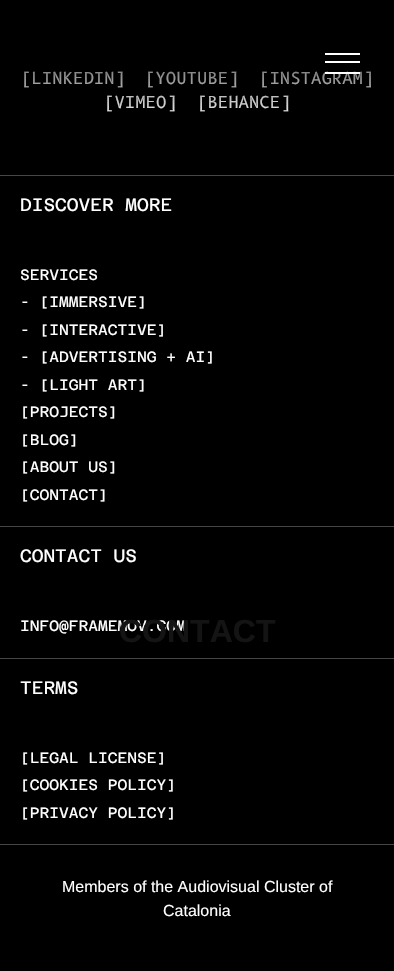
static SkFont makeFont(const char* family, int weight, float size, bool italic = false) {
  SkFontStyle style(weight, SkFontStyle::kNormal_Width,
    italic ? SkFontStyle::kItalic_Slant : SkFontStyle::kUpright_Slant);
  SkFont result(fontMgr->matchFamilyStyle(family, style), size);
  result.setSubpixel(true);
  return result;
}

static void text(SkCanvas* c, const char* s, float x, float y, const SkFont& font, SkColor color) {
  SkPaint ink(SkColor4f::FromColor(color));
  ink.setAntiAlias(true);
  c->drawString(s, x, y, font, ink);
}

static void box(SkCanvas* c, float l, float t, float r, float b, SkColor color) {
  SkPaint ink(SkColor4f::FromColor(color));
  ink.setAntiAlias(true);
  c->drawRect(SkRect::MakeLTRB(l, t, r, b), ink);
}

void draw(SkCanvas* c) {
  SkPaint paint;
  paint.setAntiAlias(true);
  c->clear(0xff000000);
  SkFont face1 = makeFont("B612 Mono", 400, 16);
  text(c, "[LINKEDIN]", 21, 84, face1, 0xffffffff);
  text(c, "[YOUTUBE]", 145, 84, face1, 0xffffffff);
  text(c, "[INSTAGRAM]", 259, 84, face1, 0xffffffff);
  text(c, "[VIMEO]", 104, 108, face1, 0xffffffff);
  text(c, "[BEHANCE]", 197, 108, face1, 0xffffffff);
  box(c, 0, 526, 394, 659, 0xff464646);
  box(c, 0, 175, 394, 176, 0xff464646);
  SkFont face2 = makeFont("Azeret Mono", 400, 18);
  text(c, "DISCOVER MORE", 20, 211, face2, 0xffffffff);
  SkFont face3 = makeFont("Azeret Mono", 400, 15);
  text(c, "SERVICES", 20, 280, face3, 0xffffffff);
  text(c, "- [IMMERSIVE]", 20, 307, face3, 0xffffffff);
  text(c, "- [INTERACTIVE]", 20, 335, face3, 0xffffffff);
  text(c, "- [ADVERTISING + AI]", 20, 362, face3, 0xffffffff);
  text(c, "- [LIGHT ART]", 20, 390, face3, 0xffffffff);
  text(c, "[PROJECTS]", 20, 417, face3, 0xffffffff);
  text(c, "[BLOG]", 20, 445, face3, 0xffffffff);
  text(c, "[ABOUT US]", 20, 472, face3, 0xffffffff);
  text(c, "[CONTACT]", 20, 500, face3, 0xffffffff);
  box(c, 0, 527, 394, 658, 0xff000000);
  text(c, "CONTACT US", 20, 562, face2, 0xffffffff);
  text(c, "INFO@FRAMEMOV.COM", 20, 631, face3, 0xffffffff);
  text(c, "TERMS", 20, 694, face2, 0xffffffff);
  text(c, "[LEGAL LICENSE]", 20, 763, face3, 0xffffffff);
  text(c, "[COOKIES POLICY]", 20, 790, face3, 0xffffffff);
  text(c, "[PRIVACY POLICY]", 20, 818, face3, 0xffffffff);
  box(c, 0, 844, 394, 845, 0xff464646);
  SkFont face4 = makeFont("Liberation Sans", 400, 16);
  text(c, "Members of the Audiovisual Cluster of", 62, 892, face4, 0xffffffff);
  text(c, "Catalonia", 163, 916, face4, 0xffffffff);
  {
    const SkColor colors[] = {0xff000000, 0x00000000};
    const float stops[] = {0.1f, 1};
    const SkPoint ends[] = {{197, 0}, {197, 125}};
    paint.setShader(SkGradientShader::MakeLinear(ends, colors, stops, 2, SkTileMode::kClamp));
    paint.setAlpha(255);
  }
  c->drawRect(SkRect::MakeLTRB(24, 71, 371, 112), paint);
  box(c, 325, 53, 360, 55, 0xffffffff);
  box(c, 325, 61, 360, 63, 0xffffffff);
  box(c, 325, 72, 360, 74, 0xffffffff);
  SkFont face5 = makeFont("Liberation Sans", 700, 32);
  text(c, "CONTACT", 119, 642, face5, 0xff141414);
}
